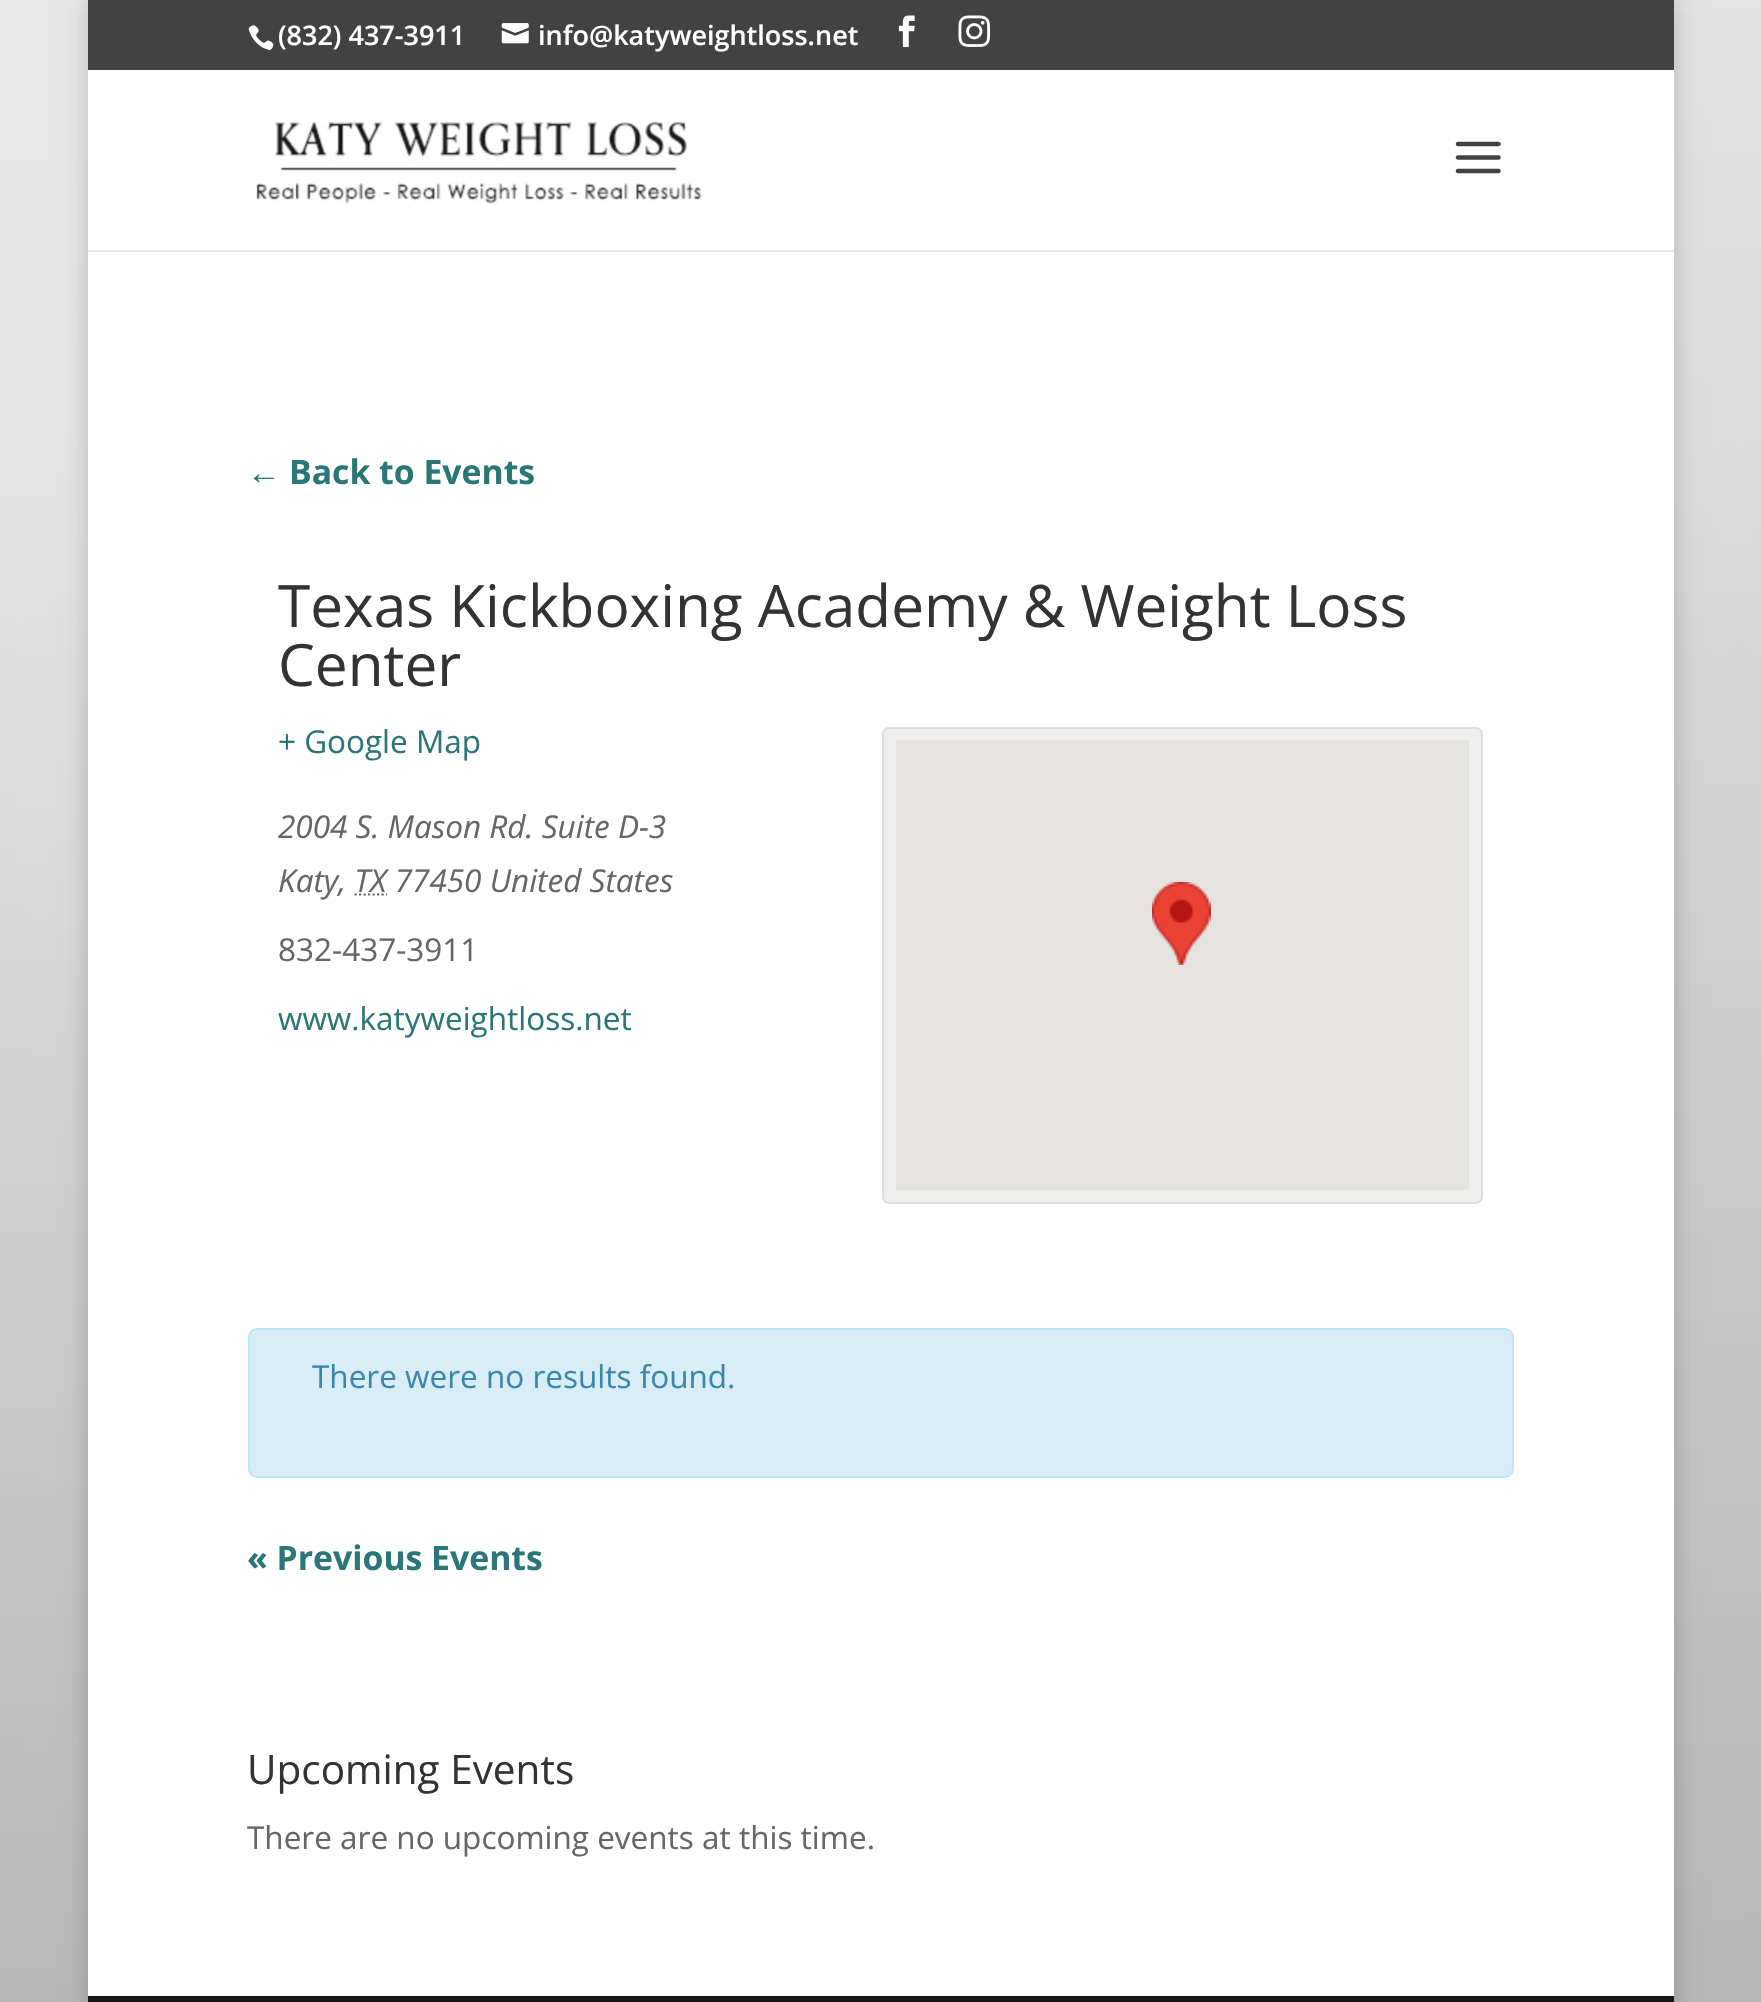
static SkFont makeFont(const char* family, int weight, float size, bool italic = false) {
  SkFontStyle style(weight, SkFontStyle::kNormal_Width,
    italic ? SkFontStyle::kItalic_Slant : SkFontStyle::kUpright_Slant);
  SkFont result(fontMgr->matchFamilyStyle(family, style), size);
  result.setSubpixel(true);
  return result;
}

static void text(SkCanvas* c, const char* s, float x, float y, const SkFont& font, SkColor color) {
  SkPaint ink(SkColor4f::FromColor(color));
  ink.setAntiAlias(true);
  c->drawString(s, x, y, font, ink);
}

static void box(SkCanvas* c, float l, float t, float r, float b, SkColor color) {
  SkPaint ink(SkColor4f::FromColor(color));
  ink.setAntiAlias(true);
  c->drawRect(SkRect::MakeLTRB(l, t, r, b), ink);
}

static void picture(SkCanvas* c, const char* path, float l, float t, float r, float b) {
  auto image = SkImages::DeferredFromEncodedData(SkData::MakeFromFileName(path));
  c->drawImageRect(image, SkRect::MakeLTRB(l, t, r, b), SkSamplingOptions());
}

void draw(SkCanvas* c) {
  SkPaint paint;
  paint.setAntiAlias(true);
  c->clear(0xffffffff);
  picture(c, "img_01.png", 0, 0, 1761, 2002);
  paint.setColor(0x33000000);
  paint.setMaskFilter(SkMaskFilter::MakeBlur(kNormal_SkBlurStyle, 11));
  c->drawRect(SkRect::MakeLTRB(88, 0, 1674, 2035), paint);
  paint.setMaskFilter(nullptr);
  box(c, 88, 0, 1674, 70, 0xff424242);
  picture(c, "img_02.png", 248, 25, 274, 51);
  SkFont face1 = makeFont("Open Sans", 600, 27);
  text(c, "(832) 437-3911", 278, 45, face1, 0xffffffff);
  picture(c, "img_03.png", 501, 23, 529, 44);
  text(c, "info@katyweightloss.net", 538, 45, face1, 0xffffffff);
  picture(c, "img_04.png", 898, 15, 915, 47);
  picture(c, "img_05.png", 958, 15, 990, 47);
  box(c, 88, 250, 1674, 252, 0xffe6e6e6);
  box(c, 88, 70, 1674, 250, 0xffffffff);
  picture(c, "img_06.png", 256, 122, 702, 204);
  picture(c, "img_07.png", 1455, 141, 1501, 174);
  box(c, 88, 252, 1674, 1996, 0xffffffff);
  SkFont face2 = makeFont("Liberation Sans", 700, 33.75f);
  text(c, "←", 247, 484, face2, 0xff2b7677);
  SkFont face3 = makeFont("Open Sans", 700, 33.75f);
  text(c, "Back to Events", 289, 484, face3, 0xff2b7677);
  SkFont face4 = makeFont("Open Sans", 400, 58.5f);
  text(c, "Texas Kickboxing Academy & Weight Loss", 278, 627, face4, 0xff333333);
  text(c, "Center", 278, 686, face4, 0xff333333);
  SkFont face5 = makeFont("Open Sans", 400, 31.5f);
  text(c, "+ Google Map", 278, 753, face5, 0xff2b7677);
  SkFont face6 = makeFont("Open Sans", 400, 31.5f, true);
  text(c, "2004 S. Mason Rd. Suite D-3", 278, 838, face6, 0xff666666);
  text(c, "Katy, TX 77450 United States", 278, 892, face6, 0xff666666);
  paint.setStyle(SkPaint::kStroke_Style);
  paint.setStrokeWidth(2.2f);
  paint.setColor(0xff666666);
  paint.setPathEffect(SkDashPathEffect::Make({{2.25f, 2.25f}}, 0));
  c->drawPath(SkPathBuilder().moveTo(354.5f, 894.5f).lineTo(387, 894.5f).detach(), paint);
  paint.setPathEffect(nullptr);
  text(c, "832-437-3911", 278, 961, face5, 0xff666666);
  text(c, "www.katyweightloss.net", 278, 1030, face5, 0xff2b7677);
  paint.setStyle(SkPaint::kFill_Style);
  paint.setColor(0xffeeeeee);
  c->drawRoundRect(SkRect::MakeLTRB(883, 728, 1482, 1203), 6, 6, paint);
  paint.setStyle(SkPaint::kStroke_Style);
  paint.setStrokeWidth(2);
  paint.setColor(0xffdddddd);
  c->drawRoundRect(SkRect::MakeLTRB(883, 728, 1482, 1203), 6, 6, paint);
  box(c, 896, 740, 1469, 1190, 0xffe5e3df);
  picture(c, "img_08.png", 1152, 882, 1211, 965);
  paint.setStyle(SkPaint::kFill_Style);
  paint.setColor(0xffd9edf7);
  c->drawRoundRect(SkRect::MakeLTRB(249, 1329, 1513, 1477), 8, 8, paint);
  paint.setStyle(SkPaint::kStroke_Style);
  paint.setColor(0xffbce8f1);
  c->drawRoundRect(SkRect::MakeLTRB(249, 1329, 1513, 1477), 8, 8, paint);
  text(c, "There were no results found.", 312, 1388, face5, 0xff3a87ad);
  text(c, "« Previous Events", 247, 1570, face3, 0xff2b7677);
  SkFont face7 = makeFont("Open Sans", 400, 40.5f);
  text(c, "Upcoming Events", 247, 1784, face7, 0xff333333);
  text(c, "There are no upcoming events at this time.", 247, 1849, face5, 0xff666666);
  box(c, 88, 1996, 1674, 2002, 0xff171717);
}
